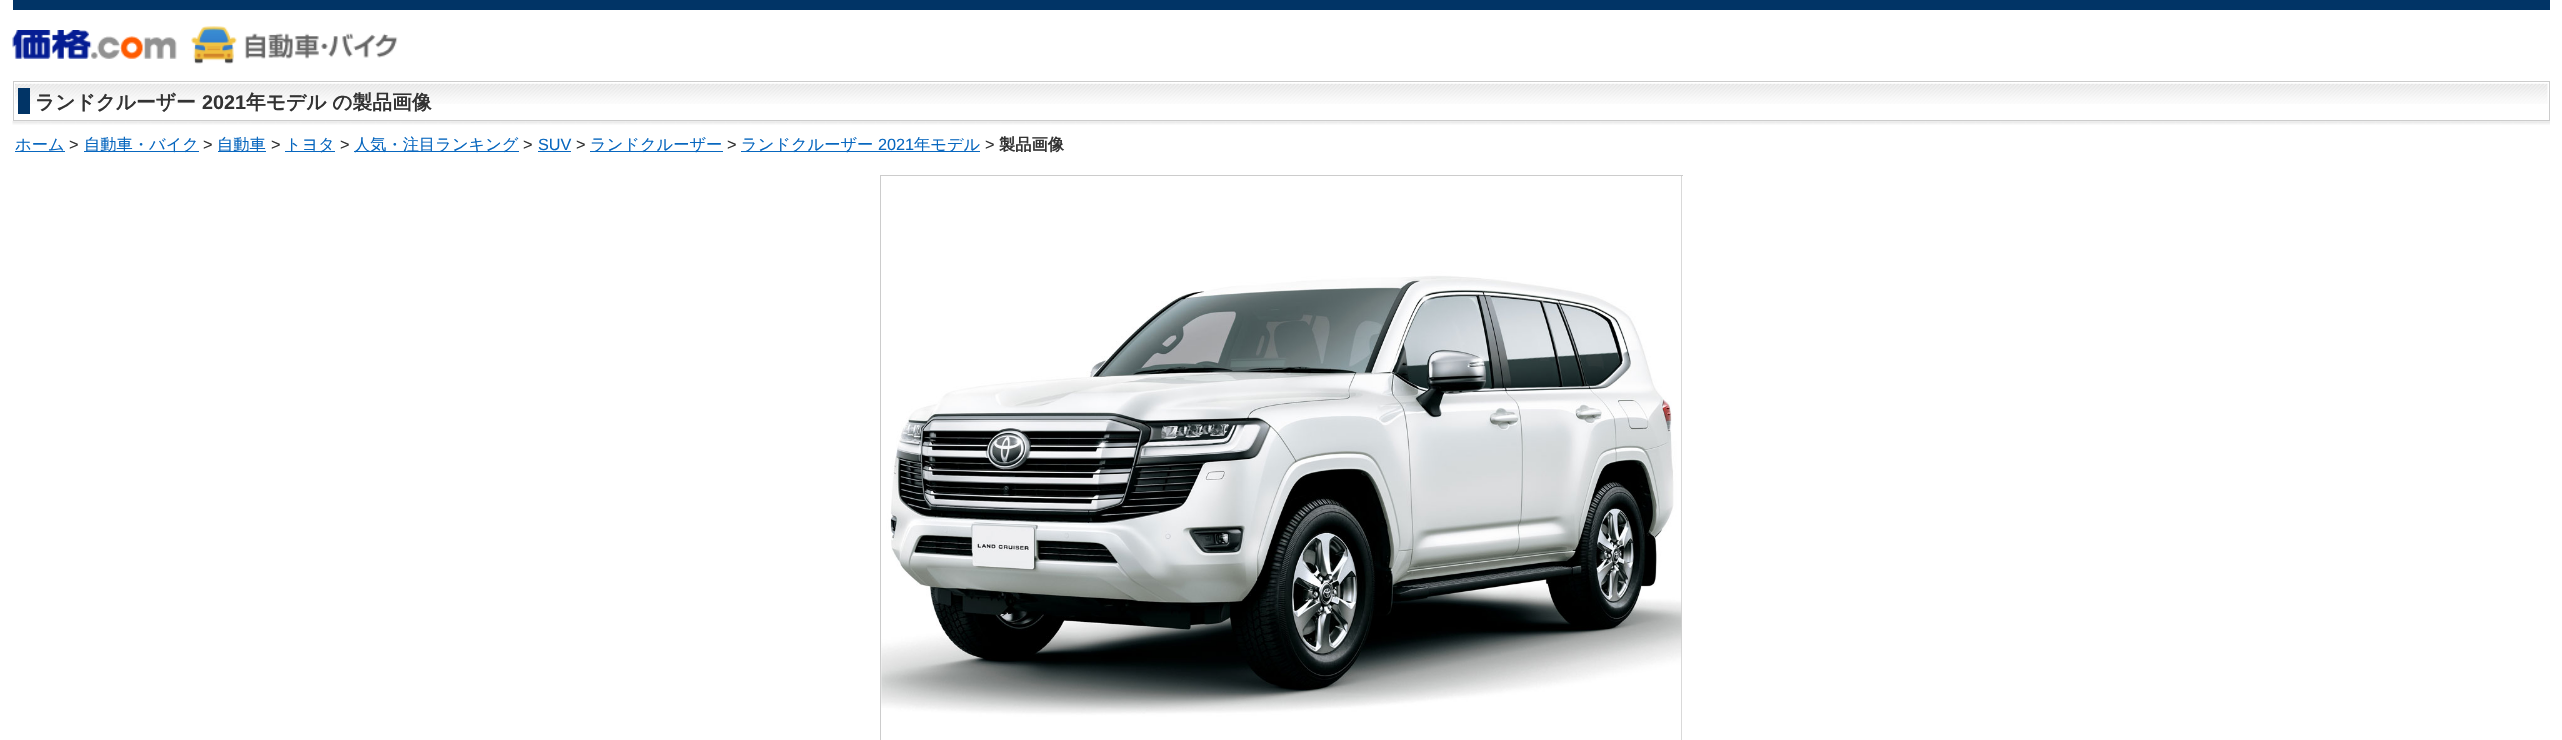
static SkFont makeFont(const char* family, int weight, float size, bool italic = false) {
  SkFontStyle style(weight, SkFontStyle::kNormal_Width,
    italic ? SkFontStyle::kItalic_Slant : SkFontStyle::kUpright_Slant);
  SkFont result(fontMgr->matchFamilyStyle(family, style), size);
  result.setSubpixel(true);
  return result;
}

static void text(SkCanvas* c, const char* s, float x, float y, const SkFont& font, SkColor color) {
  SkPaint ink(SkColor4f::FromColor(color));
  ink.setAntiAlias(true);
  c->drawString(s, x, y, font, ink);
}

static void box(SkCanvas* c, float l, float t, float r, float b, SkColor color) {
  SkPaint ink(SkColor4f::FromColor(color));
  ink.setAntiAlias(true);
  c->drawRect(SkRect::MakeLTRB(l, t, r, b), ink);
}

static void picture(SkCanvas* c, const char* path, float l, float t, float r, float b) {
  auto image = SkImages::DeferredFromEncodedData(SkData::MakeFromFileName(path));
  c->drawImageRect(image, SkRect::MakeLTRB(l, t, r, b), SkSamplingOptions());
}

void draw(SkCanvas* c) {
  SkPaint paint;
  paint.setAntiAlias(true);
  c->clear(0xffffffff);
  box(c, 13, 0, 2550, 10, 0xff013466);
  picture(c, "img_01.png", 12, 30, 177, 59);
  picture(c, "img_02.png", 191, 26, 398, 64);
  picture(c, "img_03.png", 12, 121, 2550, 125);
  paint.setStyle(SkPaint::kStroke_Style);
  paint.setStrokeWidth(1);
  paint.setColor(0xffcccccc);
  c->drawRect(SkRect::MakeLTRB(13.5f, 81.5f, 2549.5f, 120.5f), paint);
  picture(c, "img_04.png", 15, 83, 2548, 104);
  box(c, 18, 88, 30, 114, 0xff013466);
  SkFont face1 = makeFont("WenQuanYi Zen Hei", 700, 19.75f);
  text(c, "ランドクルーザー", 35, 109, face1, 0xff333333);
  SkFont face2 = makeFont("Liberation Sans", 700, 19.75f);
  text(c, "2021", 202, 109, face2, 0xff333333);
  text(c, "年モデル の製品画像", 246, 109, face1, 0xff333333);
  box(c, 15, 151, 65, 152, 0xff0867bf);
  SkFont face3 = makeFont("WenQuanYi Zen Hei", 500, 16.25f);
  text(c, "ホーム", 15, 150, face3, 0xff0867bf);
  SkFont face4 = makeFont("Liberation Sans", 400, 16.25f);
  text(c, ">", 69, 150, face4, 0xff333333);
  box(c, 84, 151, 199, 152, 0xff0867bf);
  text(c, "自動車・バイク", 84, 150, face3, 0xff0867bf);
  text(c, ">", 203, 150, face4, 0xff333333);
  box(c, 218, 151, 266, 152, 0xff0867bf);
  text(c, "自動車", 217, 150, face3, 0xff0867bf);
  text(c, ">", 271, 150, face4, 0xff333333);
  box(c, 285, 151, 335, 152, 0xff0867bf);
  text(c, "トヨタ", 285, 150, face3, 0xff0867bf);
  text(c, ">", 340, 150, face4, 0xff333333);
  box(c, 354, 151, 519, 152, 0xff0867bf);
  text(c, "人気・注目ランキング", 354, 150, face3, 0xff0867bf);
  text(c, ">", 523, 150, face4, 0xff333333);
  text(c, "SUV", 538, 150, face4, 0xff0867bf);
  box(c, 538, 151, 571, 152, 0xff0867bf);
  text(c, ">", 576, 150, face4, 0xff333333);
  box(c, 590, 151, 723, 152, 0xff0867bf);
  text(c, "ランドクルーザー", 590, 150, face3, 0xff0867bf);
  text(c, ">", 727, 150, face4, 0xff333333);
  box(c, 741, 151, 980, 152, 0xff0867bf);
  text(c, "ランドクルーザー", 741, 150, face3, 0xff0867bf);
  text(c, "2021", 878, 150, face4, 0xff0867bf);
  text(c, "年モデル", 914, 150, face3, 0xff0867bf);
  text(c, ">", 985, 150, face4, 0xff333333);
  SkFont face5 = makeFont("WenQuanYi Zen Hei", 700, 16.25f);
  text(c, "製品画像", 999, 150, face5, 0xff333333);
  box(c, 880, 175, 1683, 176, 0xffcccccc);
  box(c, 1681, 175, 1682, 740, 0xffcccccc);
  box(c, 880, 175, 881, 740, 0xffcccccc);
  picture(c, "img_05.png", 881, 176, 1682, 740);
}
